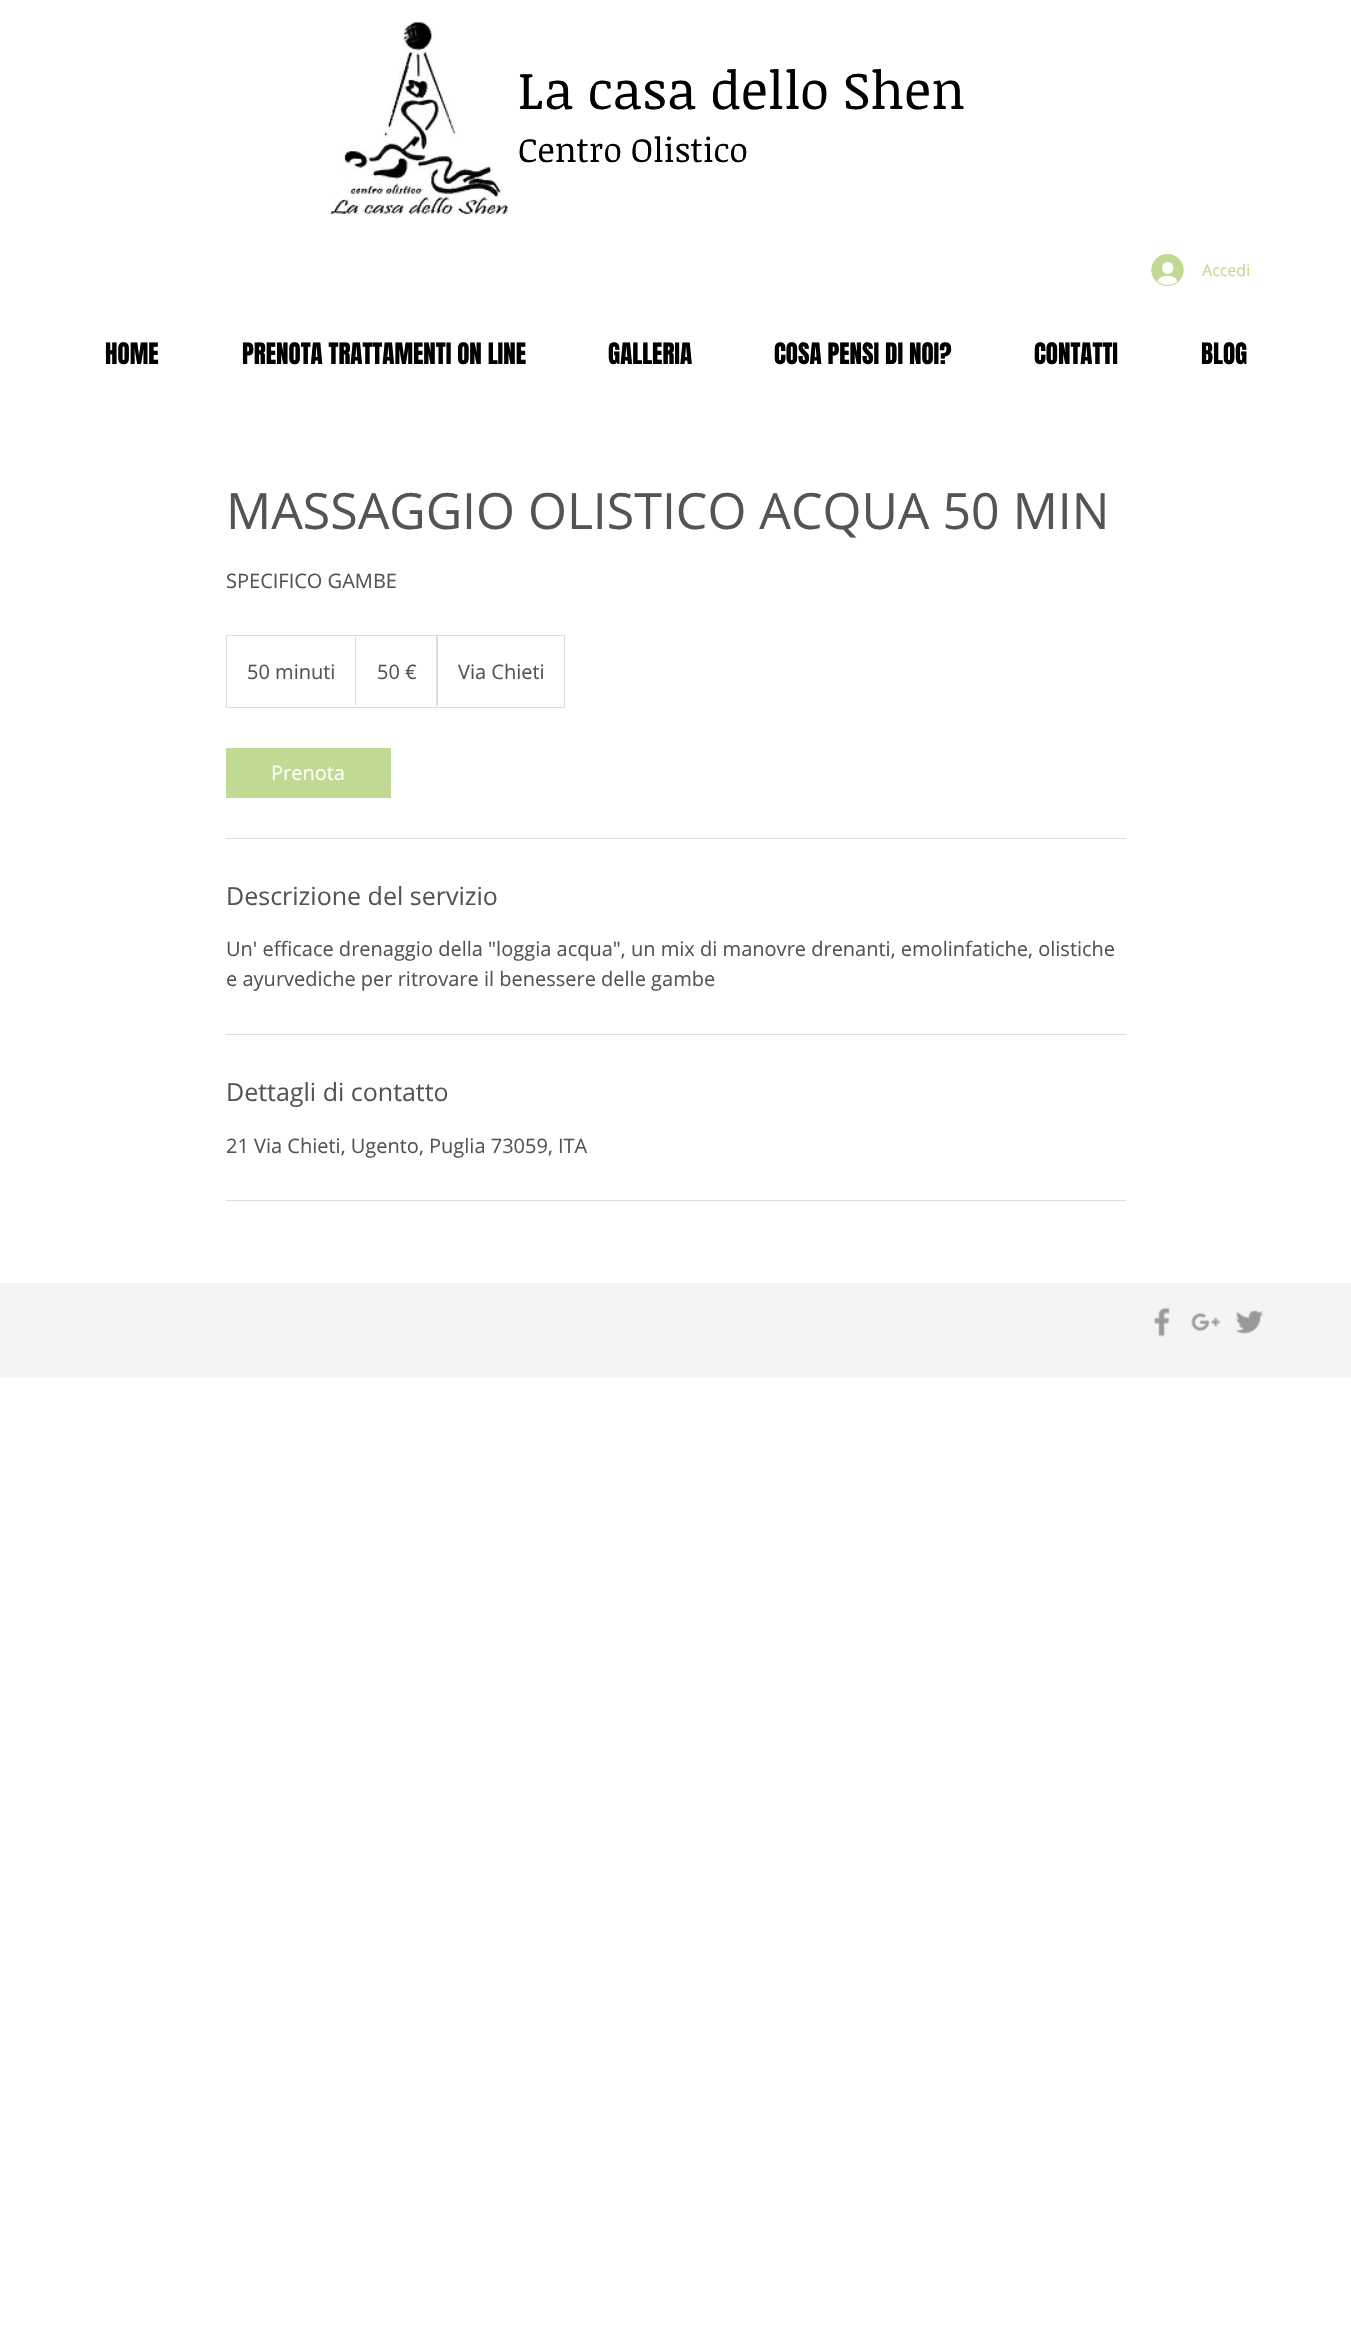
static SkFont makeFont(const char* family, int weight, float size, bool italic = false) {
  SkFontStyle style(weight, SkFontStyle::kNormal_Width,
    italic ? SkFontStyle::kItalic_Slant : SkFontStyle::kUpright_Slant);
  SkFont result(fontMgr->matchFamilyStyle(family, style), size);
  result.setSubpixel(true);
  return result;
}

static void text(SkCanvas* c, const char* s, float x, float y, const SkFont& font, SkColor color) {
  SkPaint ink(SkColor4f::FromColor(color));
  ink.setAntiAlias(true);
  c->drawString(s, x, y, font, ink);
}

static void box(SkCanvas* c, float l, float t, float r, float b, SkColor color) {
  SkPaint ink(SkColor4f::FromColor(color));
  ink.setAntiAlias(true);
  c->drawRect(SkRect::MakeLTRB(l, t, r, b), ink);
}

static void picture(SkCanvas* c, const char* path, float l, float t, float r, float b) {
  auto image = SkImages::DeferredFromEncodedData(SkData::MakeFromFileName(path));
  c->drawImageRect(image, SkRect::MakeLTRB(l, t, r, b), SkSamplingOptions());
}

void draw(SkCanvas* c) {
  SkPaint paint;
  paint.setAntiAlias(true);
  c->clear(0xffffffff);
  picture(c, "img_01.png", 329, 20, 508, 215);
  SkFont face1 = makeFont("Noticia Text", 400, 52.5f);
  text(c, "La casa dello Shen", 518, 109, face1, 0xff000000);
  SkFont face2 = makeFont("Noticia Text", 400, 33.75f);
  text(c, "Centro Olistico", 518, 162, face2, 0xff000000);
  picture(c, "img_02.png", 1151, 254, 1184, 286);
  SkFont face3 = makeFont("Open Sans", 400, 16);
  text(c, "Accedi", 1202, 276, face3, 0xffc0d993);
  SkFont face4 = makeFont("Anton", 400, 25);
  text(c, "HOME", 105, 364, face4, 0xff000000);
  text(c, "PRENOTA TRATTAMENTI ON LINE", 242, 364, face4, 0xff000000);
  text(c, "GALLERIA", 608, 364, face4, 0xff000000);
  text(c, "COSA PENSI DI NOI?", 774, 364, face4, 0xff000000);
  text(c, "CONTATTI", 1034, 364, face4, 0xff000000);
  text(c, "BLOG", 1201, 364, face4, 0xff000000);
  SkFont face5 = makeFont("Open Sans", 400, 50);
  text(c, "MASSAGGIO OLISTICO ACQUA 50 MIN", 226, 529, face5, 0xff545454);
  SkFont face6 = makeFont("Open Sans", 400, 20);
  text(c, "SPECIFICO GAMBE", 226, 588, face6, 0xff545454);
  paint.setStyle(SkPaint::kStroke_Style);
  paint.setStrokeWidth(1);
  paint.setColor(0xffdddddd);
  c->drawRect(SkRect::MakeLTRB(226.5f, 635.5f, 564.5f, 707.5f), paint);
  text(c, "50 minuti", 247, 679, face6, 0xff545454);
  paint.setStyle(SkPaint::kFill_Style);
  c->drawPath(SkPathBuilder().moveTo(355, 706).lineTo(355, 635).lineTo(356, 636).lineTo(356, 706).close().detach(), paint);
  text(c, "50 €", 377, 679, face6, 0xff545454);
  c->drawPath(SkPathBuilder().moveTo(436, 706).lineTo(436, 635).lineTo(438, 636).lineTo(438, 706).close().detach(), paint);
  text(c, "Via Chieti", 458, 679, face6, 0xff545454);
  box(c, 226, 748, 391, 798, 0xffc0d993);
  text(c, "Prenota", 271, 780, face6, 0xffffffff);
  box(c, 226, 838, 1126, 839, 0xffdddddd);
  SkFont face7 = makeFont("Open Sans", 400, 25);
  text(c, "Descrizione del servizio", 226, 905, face7, 0xff545454);
  text(c, "Un' efficace drenaggio della \"loggia acqua\", un mix di manovre drenanti, emolinfatiche, olistiche", 226, 956, face6, 0xff545454);
  text(c, "e ayurvediche per ritrovare il benessere delle gambe", 226, 986, face6, 0xff545454);
  box(c, 226, 1034, 1126, 1035, 0xffdddddd);
  text(c, "Dettagli di contatto", 226, 1101, face7, 0xff545454);
  text(c, "21 Via Chieti, Ugento, Puglia 73059, ITA", 226, 1153, face6, 0xff545454);
  box(c, 226, 1200, 1126, 1201, 0xffdddddd);
  box(c, 0, 1283, 1351, 1378, 0xfff4f4f4);
  picture(c, "img_03.png", 1153, 1307, 1170, 1337);
  picture(c, "img_04.png", 1191, 1312, 1221, 1332);
  picture(c, "img_05.png", 1236, 1310, 1264, 1334);
}
